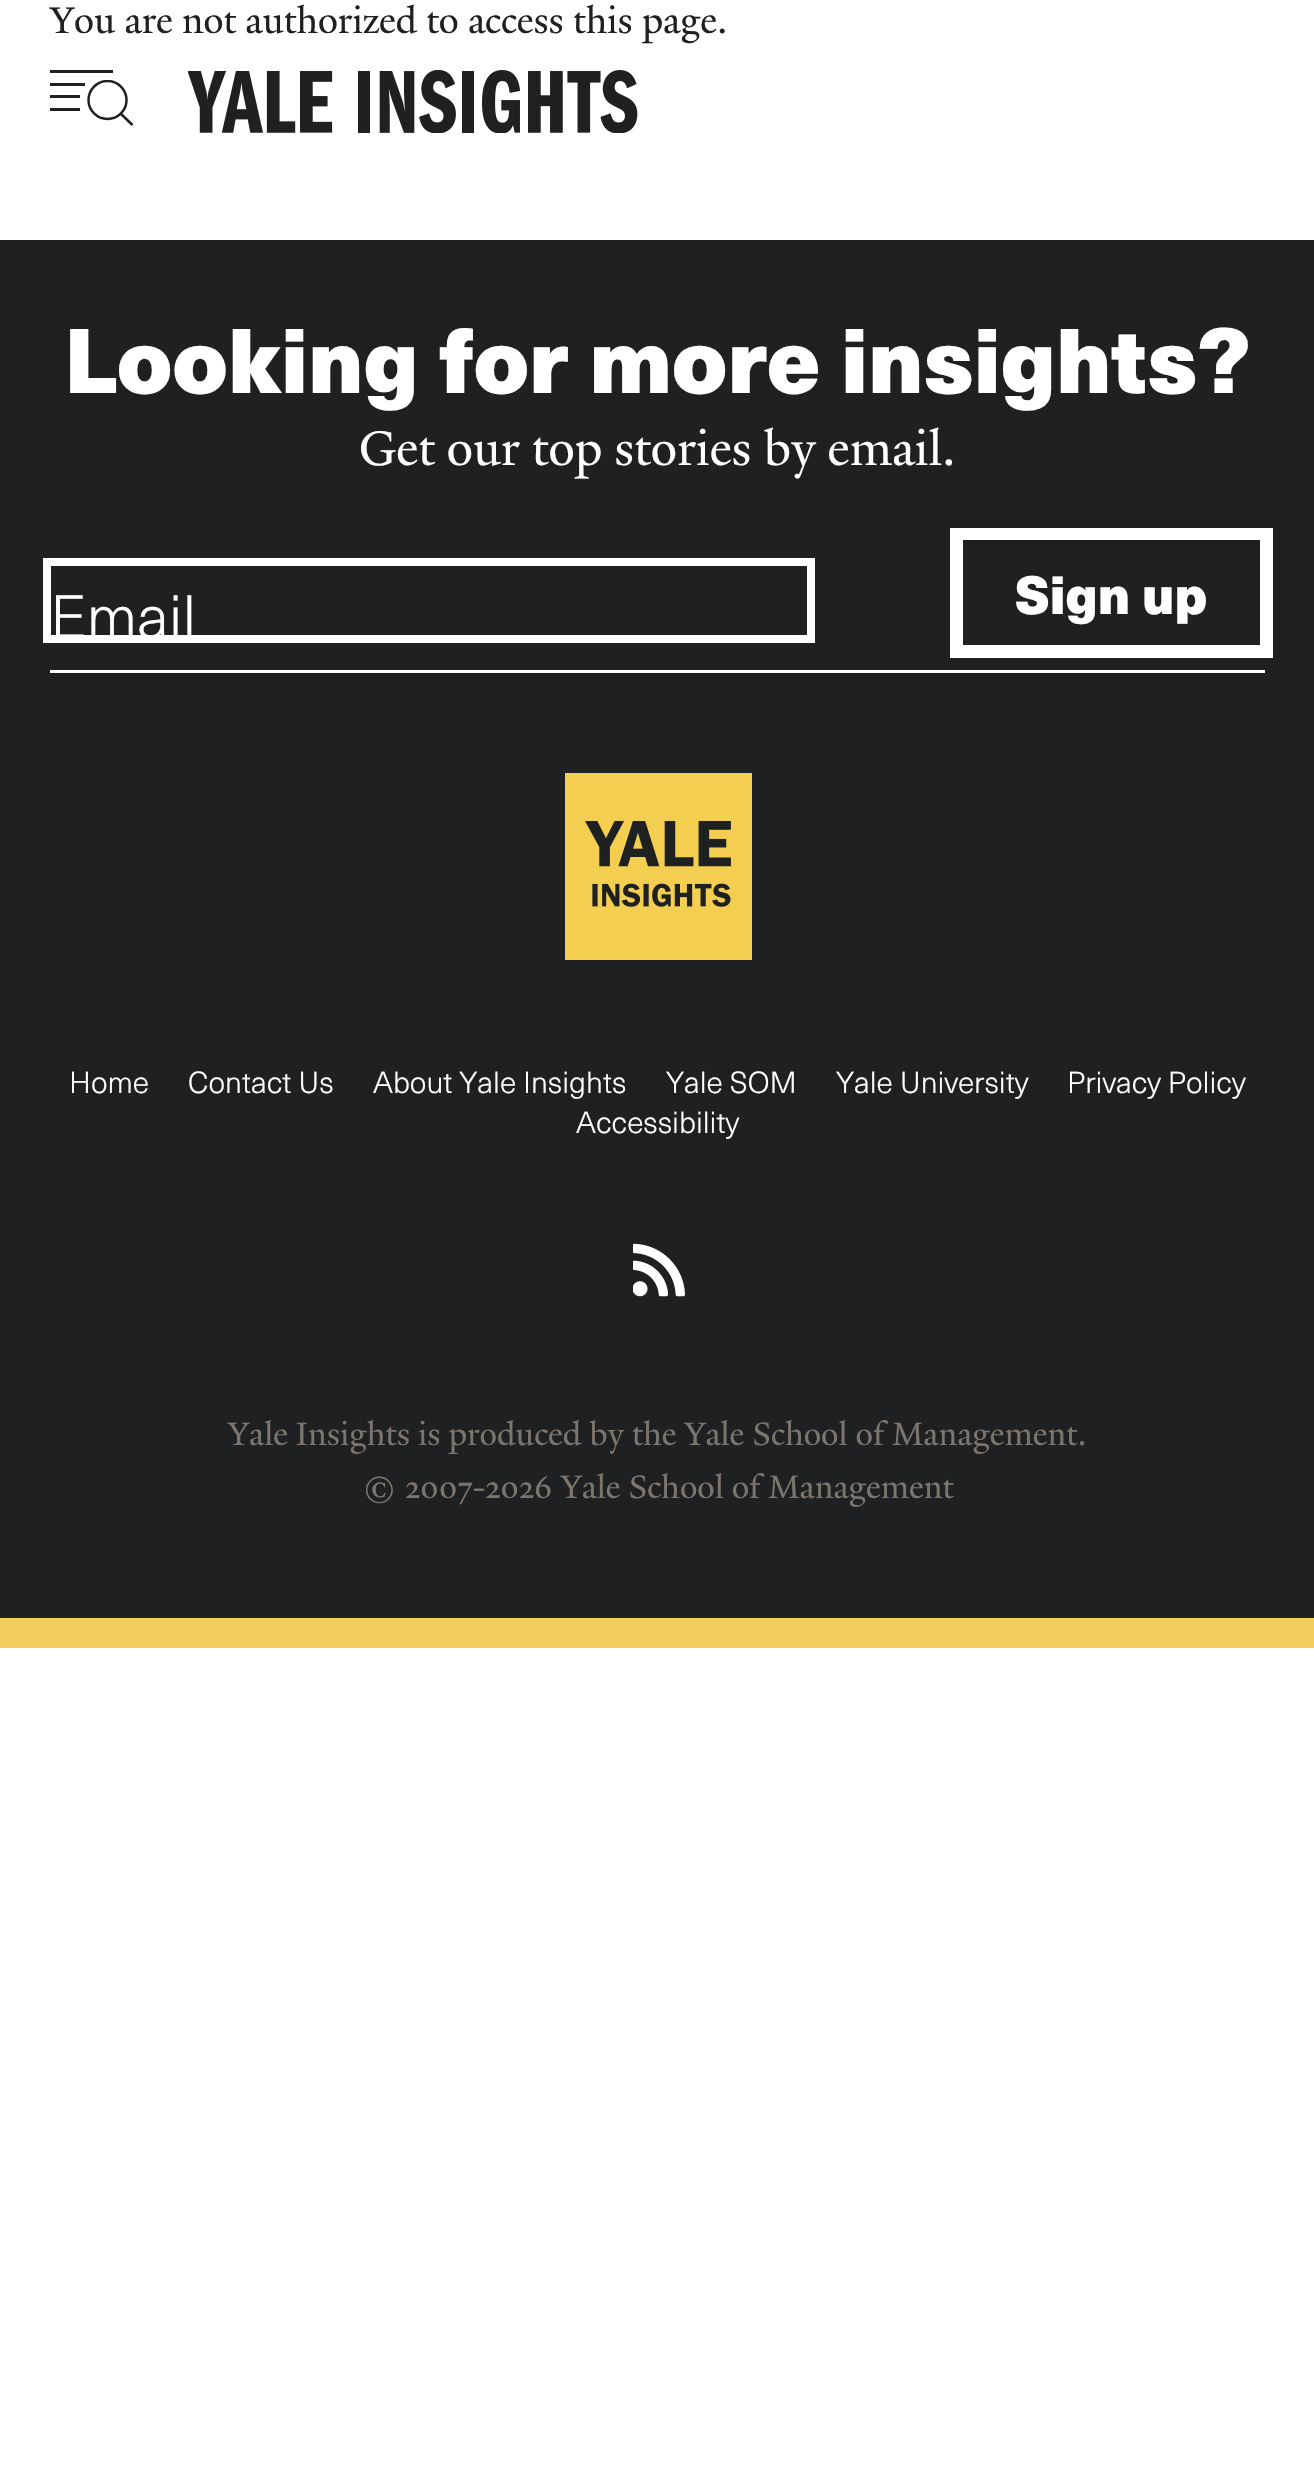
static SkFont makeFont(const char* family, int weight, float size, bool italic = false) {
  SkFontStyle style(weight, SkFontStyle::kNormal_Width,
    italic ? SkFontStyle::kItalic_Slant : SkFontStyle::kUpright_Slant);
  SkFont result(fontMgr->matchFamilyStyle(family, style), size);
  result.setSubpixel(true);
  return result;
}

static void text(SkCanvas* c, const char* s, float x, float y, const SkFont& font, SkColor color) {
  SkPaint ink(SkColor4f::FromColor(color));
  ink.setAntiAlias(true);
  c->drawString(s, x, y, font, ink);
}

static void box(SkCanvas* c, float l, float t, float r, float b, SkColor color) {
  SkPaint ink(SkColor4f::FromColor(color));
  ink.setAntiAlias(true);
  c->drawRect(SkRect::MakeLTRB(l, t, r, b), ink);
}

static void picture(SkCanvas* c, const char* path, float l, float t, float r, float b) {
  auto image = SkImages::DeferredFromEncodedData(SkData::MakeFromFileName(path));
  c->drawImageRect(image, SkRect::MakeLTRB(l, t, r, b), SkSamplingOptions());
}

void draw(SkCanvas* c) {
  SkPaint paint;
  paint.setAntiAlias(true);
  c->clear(0xffffffff);
  SkFont face1 = makeFont("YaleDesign", 400, 40);
  text(c, "You are not authorized to access this page.", 50, 33, face1, 0xff1f2021);
  box(c, 50, 70, 113, 73, 0xff1f2021);
  box(c, 50, 83, 85, 86, 0xff1f2021);
  paint.setStyle(SkPaint::kStroke_Style);
  paint.setStrokeWidth(2.5f);
  paint.setColor(0xff1f2021);
  c->drawPath(SkPathBuilder().moveTo(121, 114).lineTo(132.5f, 125).detach(), paint);
  c->save();
  c->clipRect(SkRect::MakeLTRB(85, 80, 138, 125));
  c->drawCircle(107.5f, 100, 19, paint);
  c->restore();
  box(c, 50, 95, 80, 98, 0xff1f2021);
  box(c, 50, 108, 80, 111, 0xff1f2021);
  picture(c, "img_01.png", 188, 70, 638, 133);
  box(c, 0, 240, 1314, 1618, 0xff1f2021);
  box(c, 0, 1618, 1314, 1648, 0xfff2cd5c);
  SkFont face2 = makeFont("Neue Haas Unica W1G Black", 900, 90);
  text(c, "Looking for more insights?", 64, 393, face2, 0xffffffff);
  SkFont face3 = makeFont("YaleDesign", 400, 52.5f);
  text(c, "Get our top stories by email.", 359, 465, face3, 0xffffffff);
  box(c, 50, 670, 1265, 673, 0xffffffff);
  paint.setStrokeWidth(8);
  paint.setColor(0xffffffff);
  c->drawRect(SkRect::MakeLTRB(47, 562, 811, 639), paint);
  SkFont face4 = makeFont("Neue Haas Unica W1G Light", 300, 60);
  text(c, "Email", 50, 638, face4, 0xffffffff);
  paint.setStrokeWidth(5);
  c->drawRect(SkRect::MakeLTRB(960.5f, 537.5f, 1262.5f, 647.5f), paint);
  paint.setStrokeWidth(8);
  c->drawRect(SkRect::MakeLTRB(954, 532, 1269, 654), paint);
  SkFont face5 = makeFont("Neue Haas Unica W1G Black", 900, 52.5f);
  text(c, "Sign up", 1015, 614, face5, 0xffffffff);
  picture(c, "img_02.png", 565, 773, 752, 960);
  SkFont face6 = makeFont("Neue Haas Unica W1G Light", 300, 30);
  text(c, "Home", 69, 1093, face6, 0xffffffff);
  text(c, "Contact Us", 188, 1093, face6, 0xffffffff);
  text(c, "About Yale Insights", 373, 1093, face6, 0xffffffff);
  text(c, "Yale SOM", 666, 1093, face6, 0xffffffff);
  text(c, "Yale University", 836, 1093, face6, 0xffffffff);
  text(c, "Privacy Policy", 1067, 1093, face6, 0xffffffff);
  text(c, "Accessibility", 576, 1133, face6, 0xffffffff);
  picture(c, "img_03.png", 633, 1243, 685, 1297);
  SkFont face7 = makeFont("YaleDesign", 400, 35);
  text(c, "Yale Insights is produced by the Yale School of Management.", 228, 1445, face7, 0xff7c756e);
  text(c, "© 2007-2026 Yale School of Management", 362, 1498, face7, 0xff7c756e);
}
